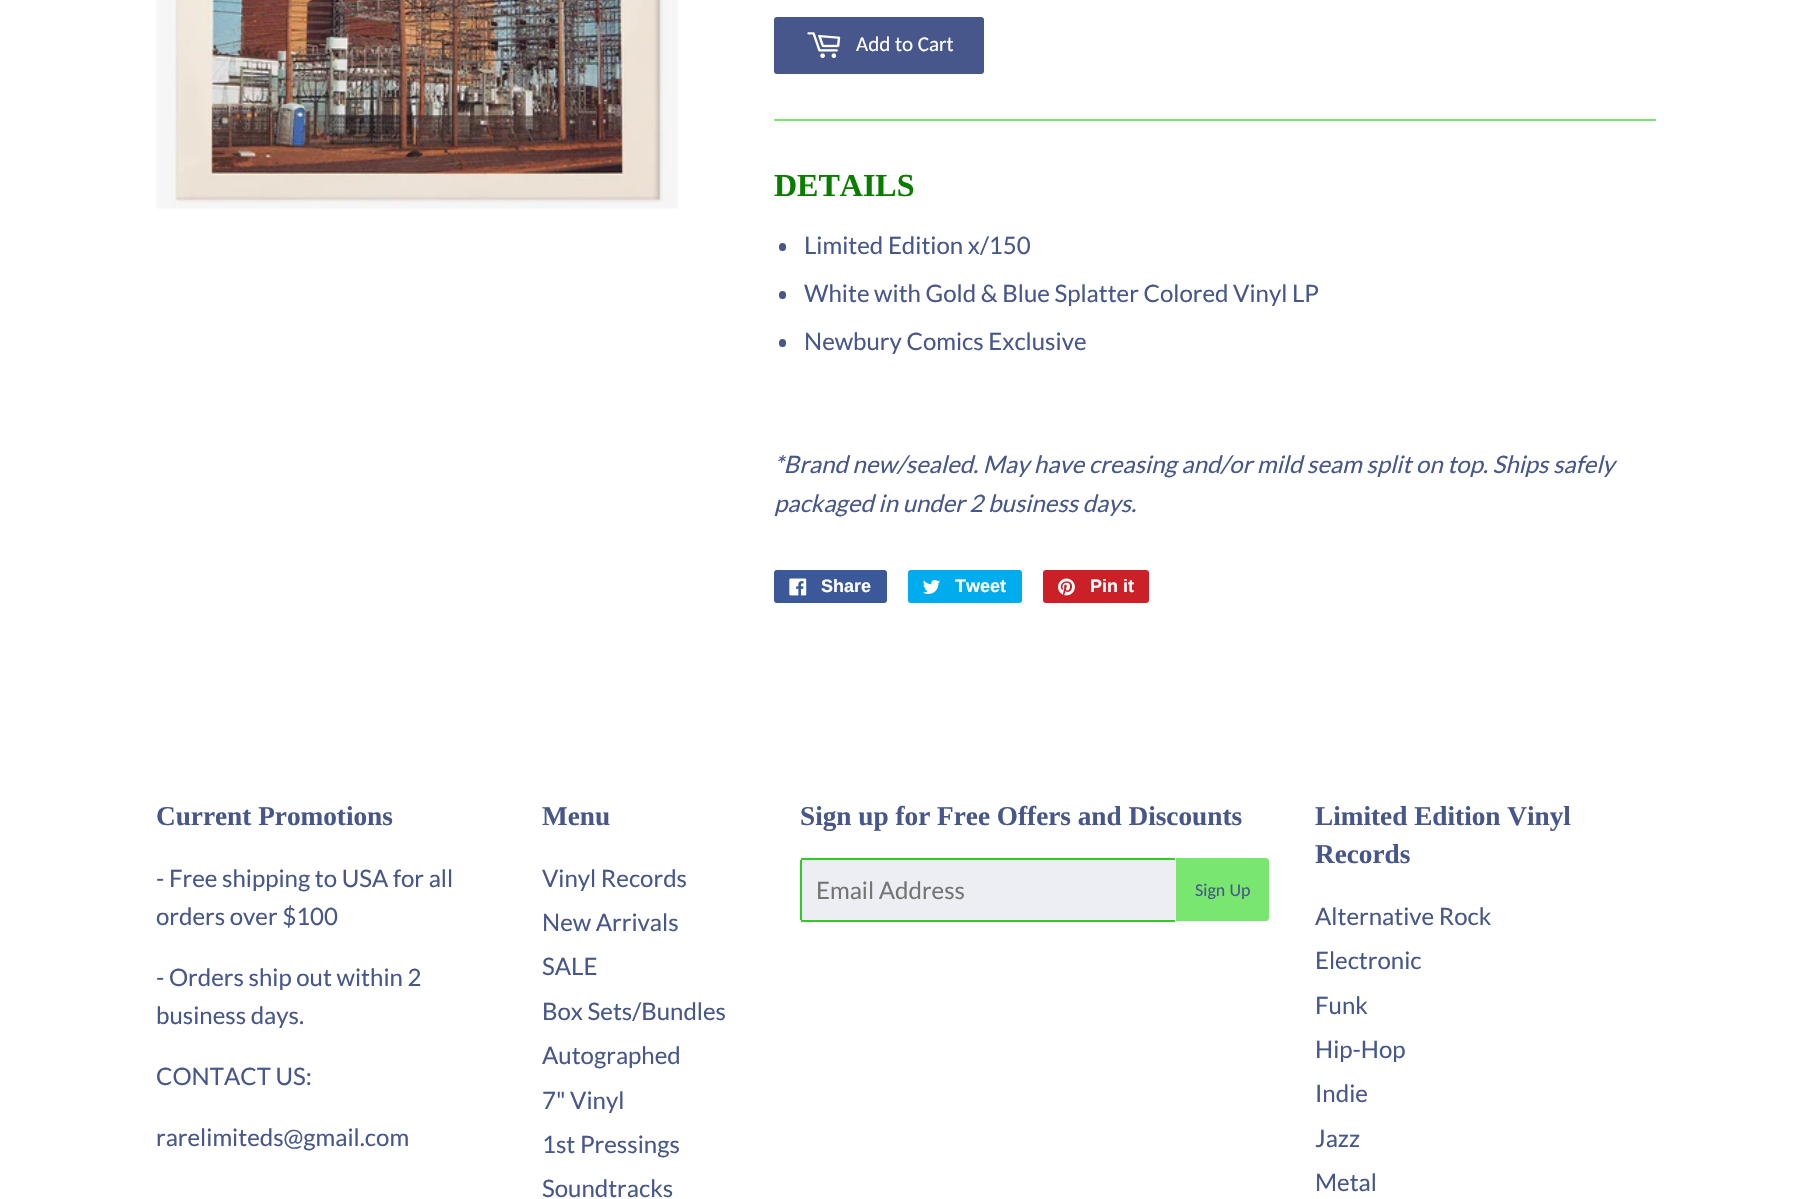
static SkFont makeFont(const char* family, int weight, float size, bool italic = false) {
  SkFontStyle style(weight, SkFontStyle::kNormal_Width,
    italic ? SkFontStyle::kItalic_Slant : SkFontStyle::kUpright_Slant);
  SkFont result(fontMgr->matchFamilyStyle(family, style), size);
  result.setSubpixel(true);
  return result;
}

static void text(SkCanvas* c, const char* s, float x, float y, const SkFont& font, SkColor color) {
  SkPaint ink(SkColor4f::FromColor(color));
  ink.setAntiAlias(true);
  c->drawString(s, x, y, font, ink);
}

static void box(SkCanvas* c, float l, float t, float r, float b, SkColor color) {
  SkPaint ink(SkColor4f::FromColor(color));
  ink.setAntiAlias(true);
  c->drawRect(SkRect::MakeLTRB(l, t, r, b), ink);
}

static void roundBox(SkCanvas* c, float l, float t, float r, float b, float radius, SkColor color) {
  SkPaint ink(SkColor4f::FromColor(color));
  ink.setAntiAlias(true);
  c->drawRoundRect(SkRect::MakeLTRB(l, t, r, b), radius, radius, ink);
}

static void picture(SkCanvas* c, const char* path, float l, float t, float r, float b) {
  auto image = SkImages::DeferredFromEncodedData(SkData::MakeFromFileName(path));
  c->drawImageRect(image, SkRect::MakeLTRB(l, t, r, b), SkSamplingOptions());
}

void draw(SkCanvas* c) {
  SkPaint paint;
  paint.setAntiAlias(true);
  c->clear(0xffffffff);
  picture(c, "img_01.png", 156, 0, 678, 209);
  roundBox(c, 774, 17, 984, 74, 3, 0xff47578b);
  picture(c, "img_02.png", 807, 32, 841, 58);
  SkFont face1 = makeFont("Carlito", 400, 21);
  text(c, "Add to Cart", 856, 51, face1, 0xffffffff);
  box(c, 774, 119, 1656, 121, 0xff79e66f);
  SkFont face2 = makeFont("Liberation Serif", 700, 32);
  text(c, "DETAILS", 774, 196, face2, 0xff0a7c00);
  roundBox(c, 779, 243, 786, 251, 3.5f, 0xff47578b);
  SkFont face3 = makeFont("Lato", 400, 24);
  text(c, "Limited Edition x/150", 804, 254, face3, 0xff47578b);
  roundBox(c, 779, 291, 786, 299, 3.5f, 0xff47578b);
  text(c, "White with Gold & Blue Splatter Colored Vinyl LP", 804, 302, face3, 0xff47578b);
  roundBox(c, 779, 339, 786, 347, 3.5f, 0xff47578b);
  text(c, "Newbury Comics Exclusive", 804, 350, face3, 0xff47578b);
  SkFont face4 = makeFont("Lato", 400, 24, true);
  text(c, "*Brand new/sealed. May have creasing and/or mild seam split on top. Ships safely", 774, 473, face4, 0xff47578b);
  text(c, "packaged in under 2 business days.", 774, 512, face4, 0xff47578b);
  roundBox(c, 774, 570, 887, 603, 3, 0xff3b5998);
  picture(c, "img_03.png", 789, 578, 807, 596);
  SkFont face5 = makeFont("Liberation Sans", 700, 18);
  text(c, "Share", 821, 592, face5, 0xffffffff);
  roundBox(c, 908, 570, 1022, 603, 3, 0xff00aced);
  picture(c, "img_04.png", 923, 579, 940, 594);
  text(c, "Tweet", 955, 592, face5, 0xffffffff);
  roundBox(c, 1043, 570, 1149, 603, 3, 0xffcb2027);
  picture(c, "img_05.png", 1058, 578, 1075, 596);
  text(c, "Pin it", 1090, 592, face5, 0xffffffff);
  SkFont face6 = makeFont("Liberation Serif", 700, 27.25f);
  text(c, "Current Promotions", 156, 825, face6, 0xff47578b);
  text(c, "- Free shipping to USA for all", 156, 887, face3, 0xff47578b);
  text(c, "orders over $100", 156, 925, face3, 0xff47578b);
  text(c, "- Orders ship out within 2", 156, 986, face3, 0xff47578b);
  text(c, "business days.", 156, 1024, face3, 0xff47578b);
  text(c, "CONTACT US:", 156, 1085, face3, 0xff47578b);
  text(c, "rarelimiteds@gmail.com", 156, 1146, face3, 0xff47578b);
  text(c, "Menu", 542, 825, face6, 0xff47578b);
  text(c, "Vinyl Records", 542, 887, face3, 0xff47578b);
  text(c, "New Arrivals", 542, 931, face3, 0xff47578b);
  text(c, "SALE", 542, 975, face3, 0xff47578b);
  text(c, "Box Sets/Bundles", 542, 1020, face3, 0xff47578b);
  text(c, "Autographed", 542, 1064, face3, 0xff47578b);
  text(c, "7\" Vinyl", 542, 1109, face3, 0xff47578b);
  text(c, "1st Pressings", 542, 1153, face3, 0xff47578b);
  text(c, "Soundtracks", 542, 1197, face3, 0xff47578b);
  text(c, "Sign up for Free Offers and Discounts", 800, 825, face6, 0xff47578b);
  roundBox(c, 800, 858, 1176, 921, 3, 0xffedeef3);
  box(c, 801, 858, 1175, 860, 0xff31cc23);
  box(c, 801, 920, 1175, 922, 0xff31cc23);
  box(c, 800, 860, 802, 920, 0xff31cc23);
  text(c, "Email Address", 816, 899, face3, 0xff757575);
  paint.setColor(0xff79e66f);
  c->drawPath(SkPathBuilder().moveTo(1176, 858).lineTo(1266, 858).cubicTo(1267.5f, 858, 1269, 859.5f, 1269, 861).lineTo(1269, 918).cubicTo(1269, 919.5f, 1267.5f, 921, 1266, 921).lineTo(1176, 921).close().detach(), paint);
  SkFont face7 = makeFont("Carlito", 400, 18);
  text(c, "Sign Up", 1195, 896, face7, 0xff47578b);
  text(c, "Limited Edition Vinyl", 1315, 825, face6, 0xff47578b);
  text(c, "Records", 1315, 863, face6, 0xff47578b);
  text(c, "Alternative Rock", 1315, 925, face3, 0xff47578b);
  text(c, "Electronic", 1315, 969, face3, 0xff47578b);
  text(c, "Funk", 1315, 1014, face3, 0xff47578b);
  text(c, "Hip-Hop", 1315, 1058, face3, 0xff47578b);
  text(c, "Indie", 1315, 1102, face3, 0xff47578b);
  text(c, "Jazz", 1315, 1147, face3, 0xff47578b);
  text(c, "Metal", 1315, 1191, face3, 0xff47578b);
}
